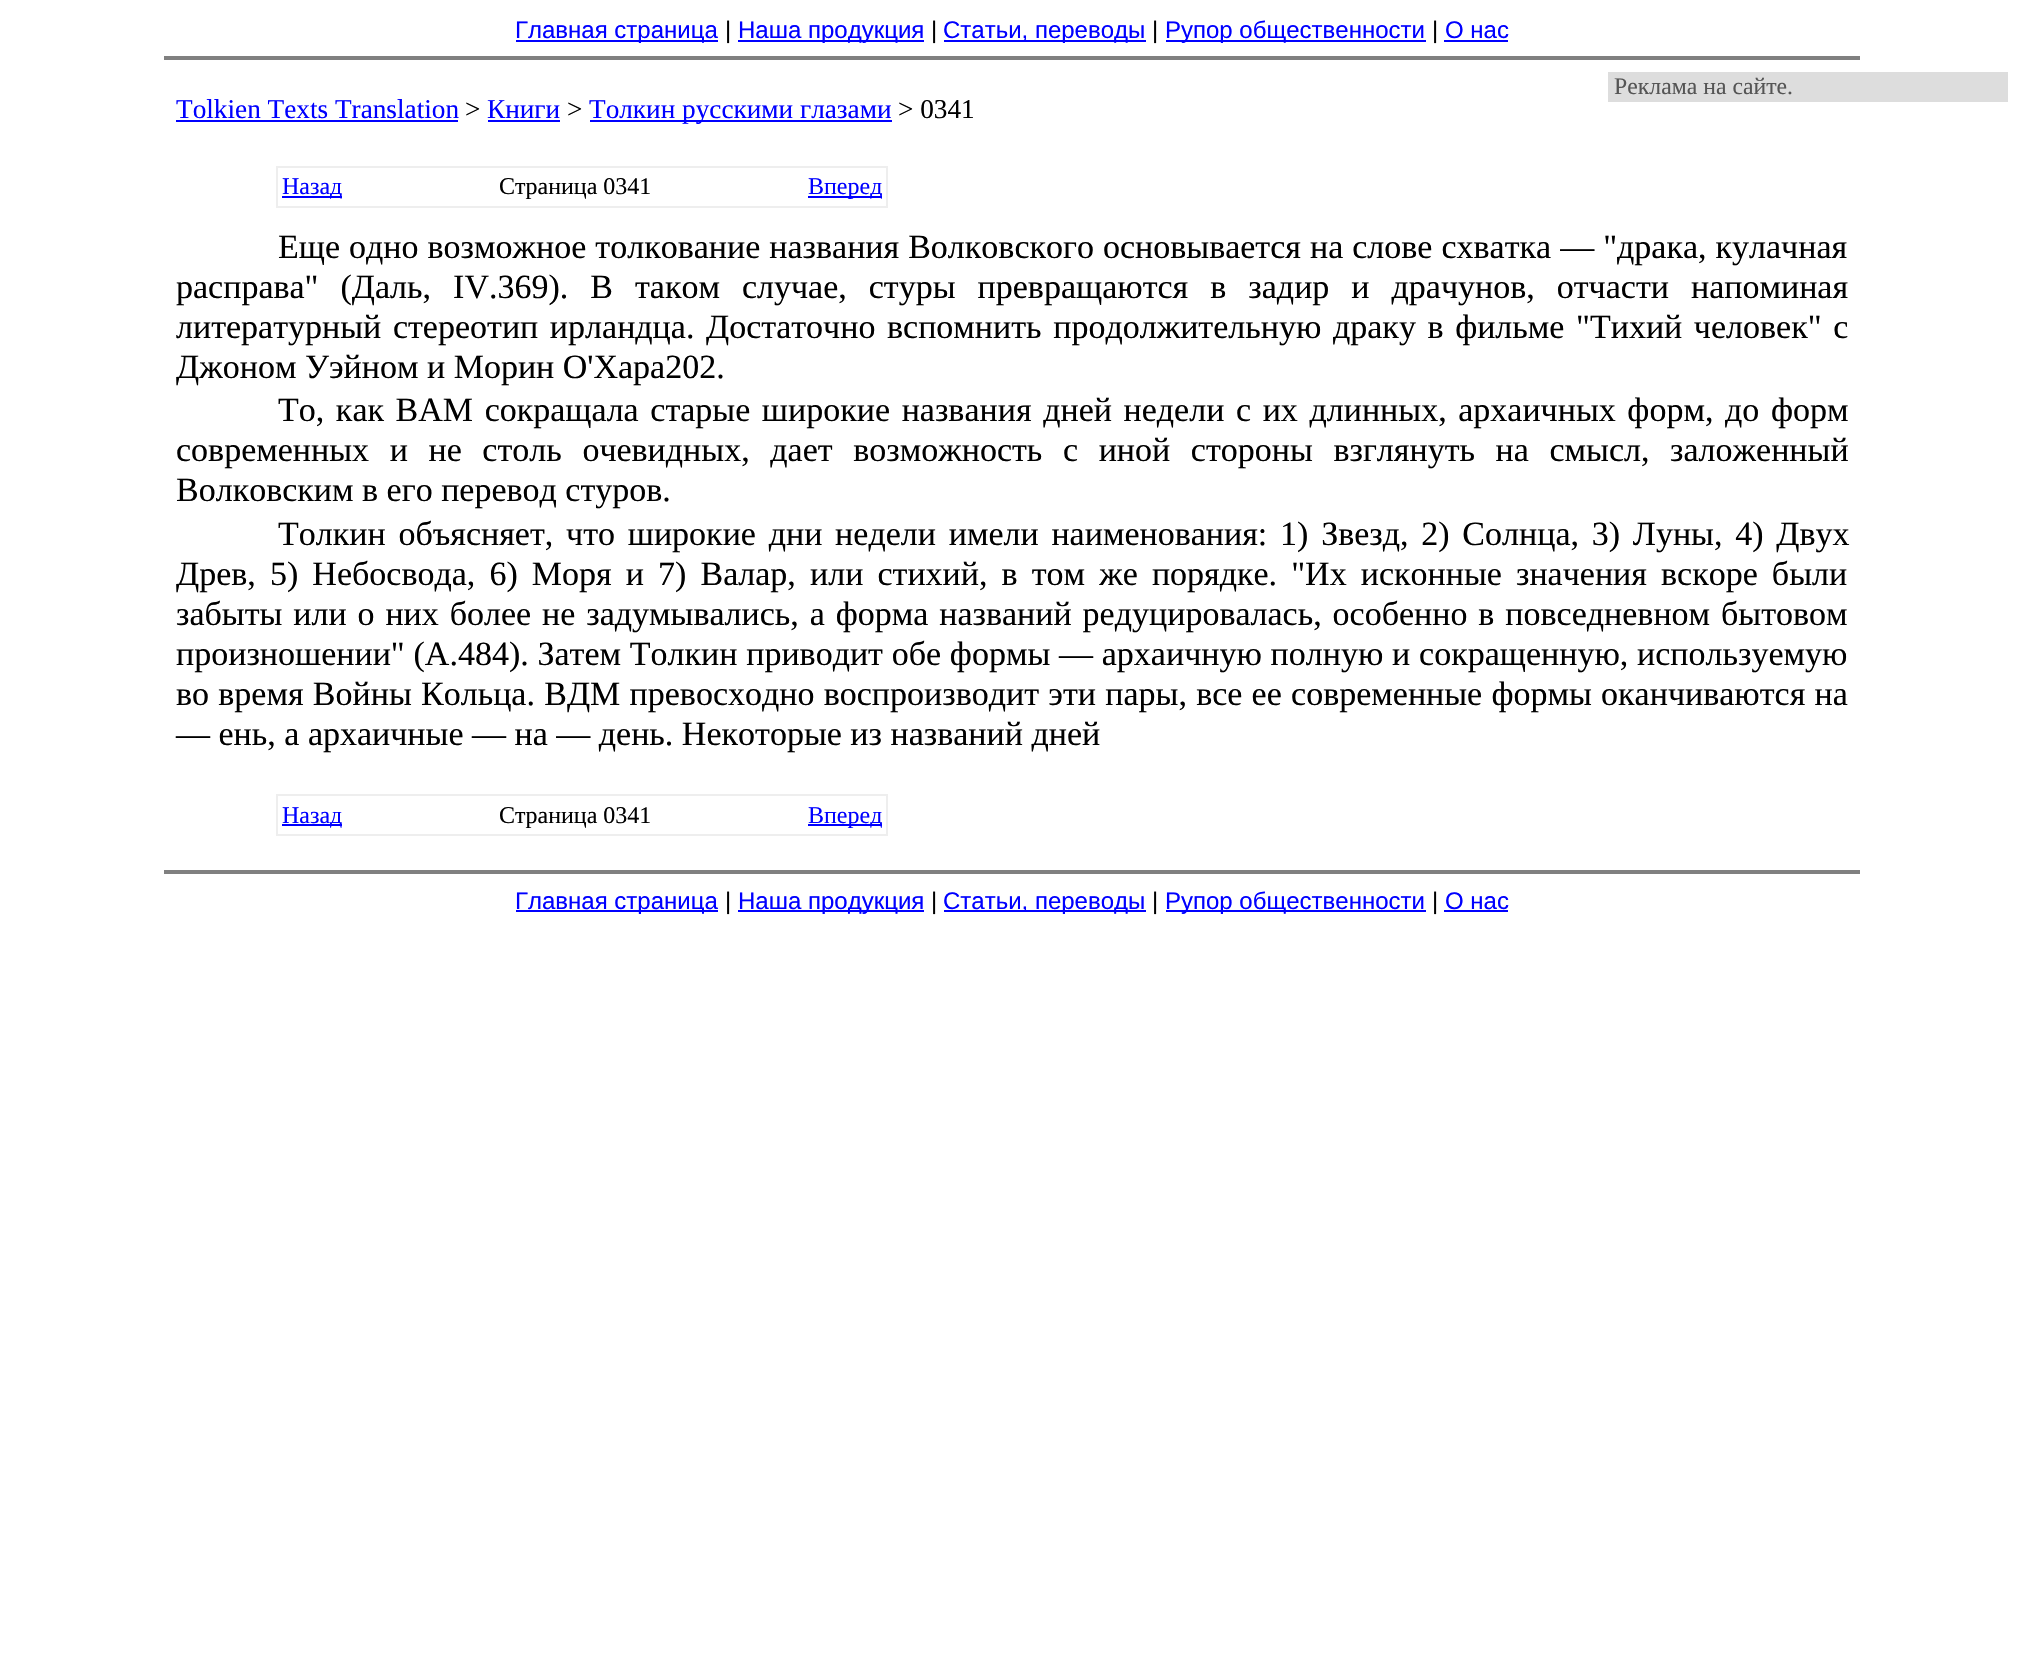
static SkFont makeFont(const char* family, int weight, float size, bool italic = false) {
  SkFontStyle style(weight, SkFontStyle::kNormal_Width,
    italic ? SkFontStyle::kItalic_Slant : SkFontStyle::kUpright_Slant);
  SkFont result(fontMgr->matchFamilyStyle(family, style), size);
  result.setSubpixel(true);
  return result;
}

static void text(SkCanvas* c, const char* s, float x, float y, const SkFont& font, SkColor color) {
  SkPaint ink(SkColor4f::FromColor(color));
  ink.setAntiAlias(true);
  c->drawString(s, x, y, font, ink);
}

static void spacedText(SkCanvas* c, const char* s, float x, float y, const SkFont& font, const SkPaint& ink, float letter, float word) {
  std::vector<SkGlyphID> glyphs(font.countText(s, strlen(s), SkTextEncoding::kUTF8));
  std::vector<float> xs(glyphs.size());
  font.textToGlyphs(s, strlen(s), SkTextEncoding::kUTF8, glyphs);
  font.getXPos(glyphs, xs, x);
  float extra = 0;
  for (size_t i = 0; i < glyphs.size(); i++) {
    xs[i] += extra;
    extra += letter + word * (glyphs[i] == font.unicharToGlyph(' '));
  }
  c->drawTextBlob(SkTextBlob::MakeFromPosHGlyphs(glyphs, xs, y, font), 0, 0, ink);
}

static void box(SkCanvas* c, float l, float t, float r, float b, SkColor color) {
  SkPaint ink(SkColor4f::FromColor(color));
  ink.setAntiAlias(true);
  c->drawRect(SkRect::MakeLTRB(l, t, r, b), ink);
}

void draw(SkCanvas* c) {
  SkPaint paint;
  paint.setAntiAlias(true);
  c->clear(0xffffffff);
  box(c, 516, 40, 718, 42, 0xff0000ff);
  SkFont face1 = makeFont("Liberation Sans", 400, 24);
  text(c, "Главная страница", 515, 38, face1, 0xff0000ff);
  text(c, "|", 725, 38, face1, 0xff000000);
  box(c, 738, 40, 924, 42, 0xff0000ff);
  text(c, "Наша продукция", 738, 38, face1, 0xff0000ff);
  text(c, "|", 931, 38, face1, 0xff000000);
  box(c, 944, 40, 1146, 42, 0xff0000ff);
  text(c, "Статьи, переводы", 943, 38, face1, 0xff0000ff);
  text(c, "|", 1152, 38, face1, 0xff000000);
  box(c, 1166, 40, 1426, 42, 0xff0000ff);
  text(c, "Рупор общественности", 1165, 38, face1, 0xff0000ff);
  text(c, "|", 1432, 38, face1, 0xff000000);
  text(c, "О нас", 1445, 38, face1, 0xff0000ff);
  box(c, 1444, 40, 1508, 42, 0xff0000ff);
  box(c, 164, 56, 1860, 60, 0xff808080);
  box(c, 1608, 72, 2008, 102, 0xffdddddd);
  SkFont face2 = makeFont("Liberation Serif", 400, 23.75f);
  text(c, "Реклама на сайте.", 1614, 94, face2, 0xff555555);
  SkFont face3 = makeFont("Liberation Serif", 400, 27.25f);
  text(c, "Tolkien Texts Translation", 176, 118, face3, 0xff0000ff);
  box(c, 176, 120, 458, 122, 0xff0000ff);
  text(c, ">", 465, 118, face3, 0xff000000);
  text(c, "Книги", 487, 118, face3, 0xff0000ff);
  box(c, 488, 120, 560, 122, 0xff0000ff);
  text(c, ">", 567, 118, face3, 0xff000000);
  box(c, 590, 120, 892, 122, 0xff0000ff);
  text(c, "Толкин русскими глазами", 589, 118, face3, 0xff0000ff);
  text(c, "> 0341", 898, 118, face3, 0xff000000);
  paint.setStyle(SkPaint::kStroke_Style);
  paint.setStrokeWidth(2);
  paint.setColor(0xffeeeeee);
  c->drawRect(SkRect::MakeLTRB(277, 167, 887, 207), paint);
  box(c, 282, 196, 342, 198, 0xff0000ff);
  SkFont face4 = makeFont("Liberation Serif", 400, 24);
  text(c, "Назад", 282, 194, face4, 0xff0000ff);
  text(c, "Страница 0341", 499, 194, face4, 0xff000000);
  box(c, 808, 196, 882, 198, 0xff0000ff);
  text(c, "Вперед", 808, 194, face4, 0xff0000ff);
  SkFont face5 = makeFont("Liberation Serif", 400, 34);
  paint.setStyle(SkPaint::kFill_Style);
  paint.setColor(0xff000000);
  spacedText(c, "Еще одно возможное толкование названия Волковского основывается на слове схватка — \"драка, кулачная", 278, 258, face5, paint, 0, 0.5f);
  spacedText(c, "расправа\" (Даль, IV.369). В таком случае, стуры превращаются в задир и драчунов, отчасти напоминая", 176, 298, face5, paint, 0, 13.5f);
  spacedText(c, "литературный стереотип ирландца. Достаточно вспомнить продолжительную драку в фильме \"Тихий человек\" с", 176, 338, face5, paint, 0, 3.1f);
  text(c, "Джоном Уэйном и Морин О'Хара202.", 176, 378, face5, 0xff000000);
  spacedText(c, "То, как ВАМ сокращала старые широкие названия дней недели с их длинных, архаичных форм, до форм", 278, 421, face5, paint, 0, 3.1f);
  spacedText(c, "современных и не столь очевидных, дает возможность с иной стороны взглянуть на смысл, заложенный", 176, 461, face5, paint, 0, 12.1f);
  text(c, "Волковским в его перевод стуров.", 176, 501, face5, 0xff000000);
  spacedText(c, "Толкин объясняет, что широкие дни недели имели наименования: 1) Звезд, 2) Солнца, 3) Луны, 4) Двух", 278, 545, face5, paint, 0, 4.25f);
  spacedText(c, "Древ, 5) Небосвода, 6) Моря и 7) Валар, или стихий, в том же порядке. \"Их исконные значения вскоре были", 176, 585, face5, paint, 0, 5.6f);
  spacedText(c, "забыты или о них более не задумывались, а форма названий редуцировалась, особенно в повседневном бытовом", 176, 625, face5, paint, 0, 2.4f);
  spacedText(c, "произношении\" (А.484). Затем Толкин приводит обе формы — архаичную полную и сокращенную, используемую", 176, 665, face5, paint, 0, 0.25f);
  spacedText(c, "во время Войны Кольца. ВДМ превосходно воспроизводит эти пары, все ее современные формы оканчиваются на", 176, 705, face5, paint, 0, 0.75f);
  text(c, "— ень, а архаичные — на — день. Некоторые из названий дней", 176, 745, face5, 0xff000000);
  paint.setStyle(SkPaint::kStroke_Style);
  paint.setColor(0xffeeeeee);
  c->drawRect(SkRect::MakeLTRB(277, 795, 887, 835), paint);
  box(c, 282, 824, 342, 826, 0xff0000ff);
  text(c, "Назад", 282, 823, face4, 0xff0000ff);
  text(c, "Страница 0341", 499, 823, face4, 0xff000000);
  box(c, 808, 824, 882, 826, 0xff0000ff);
  text(c, "Вперед", 808, 823, face4, 0xff0000ff);
  box(c, 164, 870, 1860, 874, 0xff808080);
  box(c, 516, 910, 718, 912, 0xff0000ff);
  text(c, "Главная страница", 515, 909, face1, 0xff0000ff);
  text(c, "|", 725, 909, face1, 0xff000000);
  box(c, 738, 910, 924, 912, 0xff0000ff);
  text(c, "Наша продукция", 738, 909, face1, 0xff0000ff);
  text(c, "|", 931, 909, face1, 0xff000000);
  box(c, 944, 910, 1146, 912, 0xff0000ff);
  text(c, "Статьи, переводы", 943, 909, face1, 0xff0000ff);
  text(c, "|", 1152, 909, face1, 0xff000000);
  box(c, 1166, 910, 1426, 912, 0xff0000ff);
  text(c, "Рупор общественности", 1165, 909, face1, 0xff0000ff);
  text(c, "|", 1432, 909, face1, 0xff000000);
  text(c, "О нас", 1445, 909, face1, 0xff0000ff);
  box(c, 1444, 910, 1508, 912, 0xff0000ff);
}
